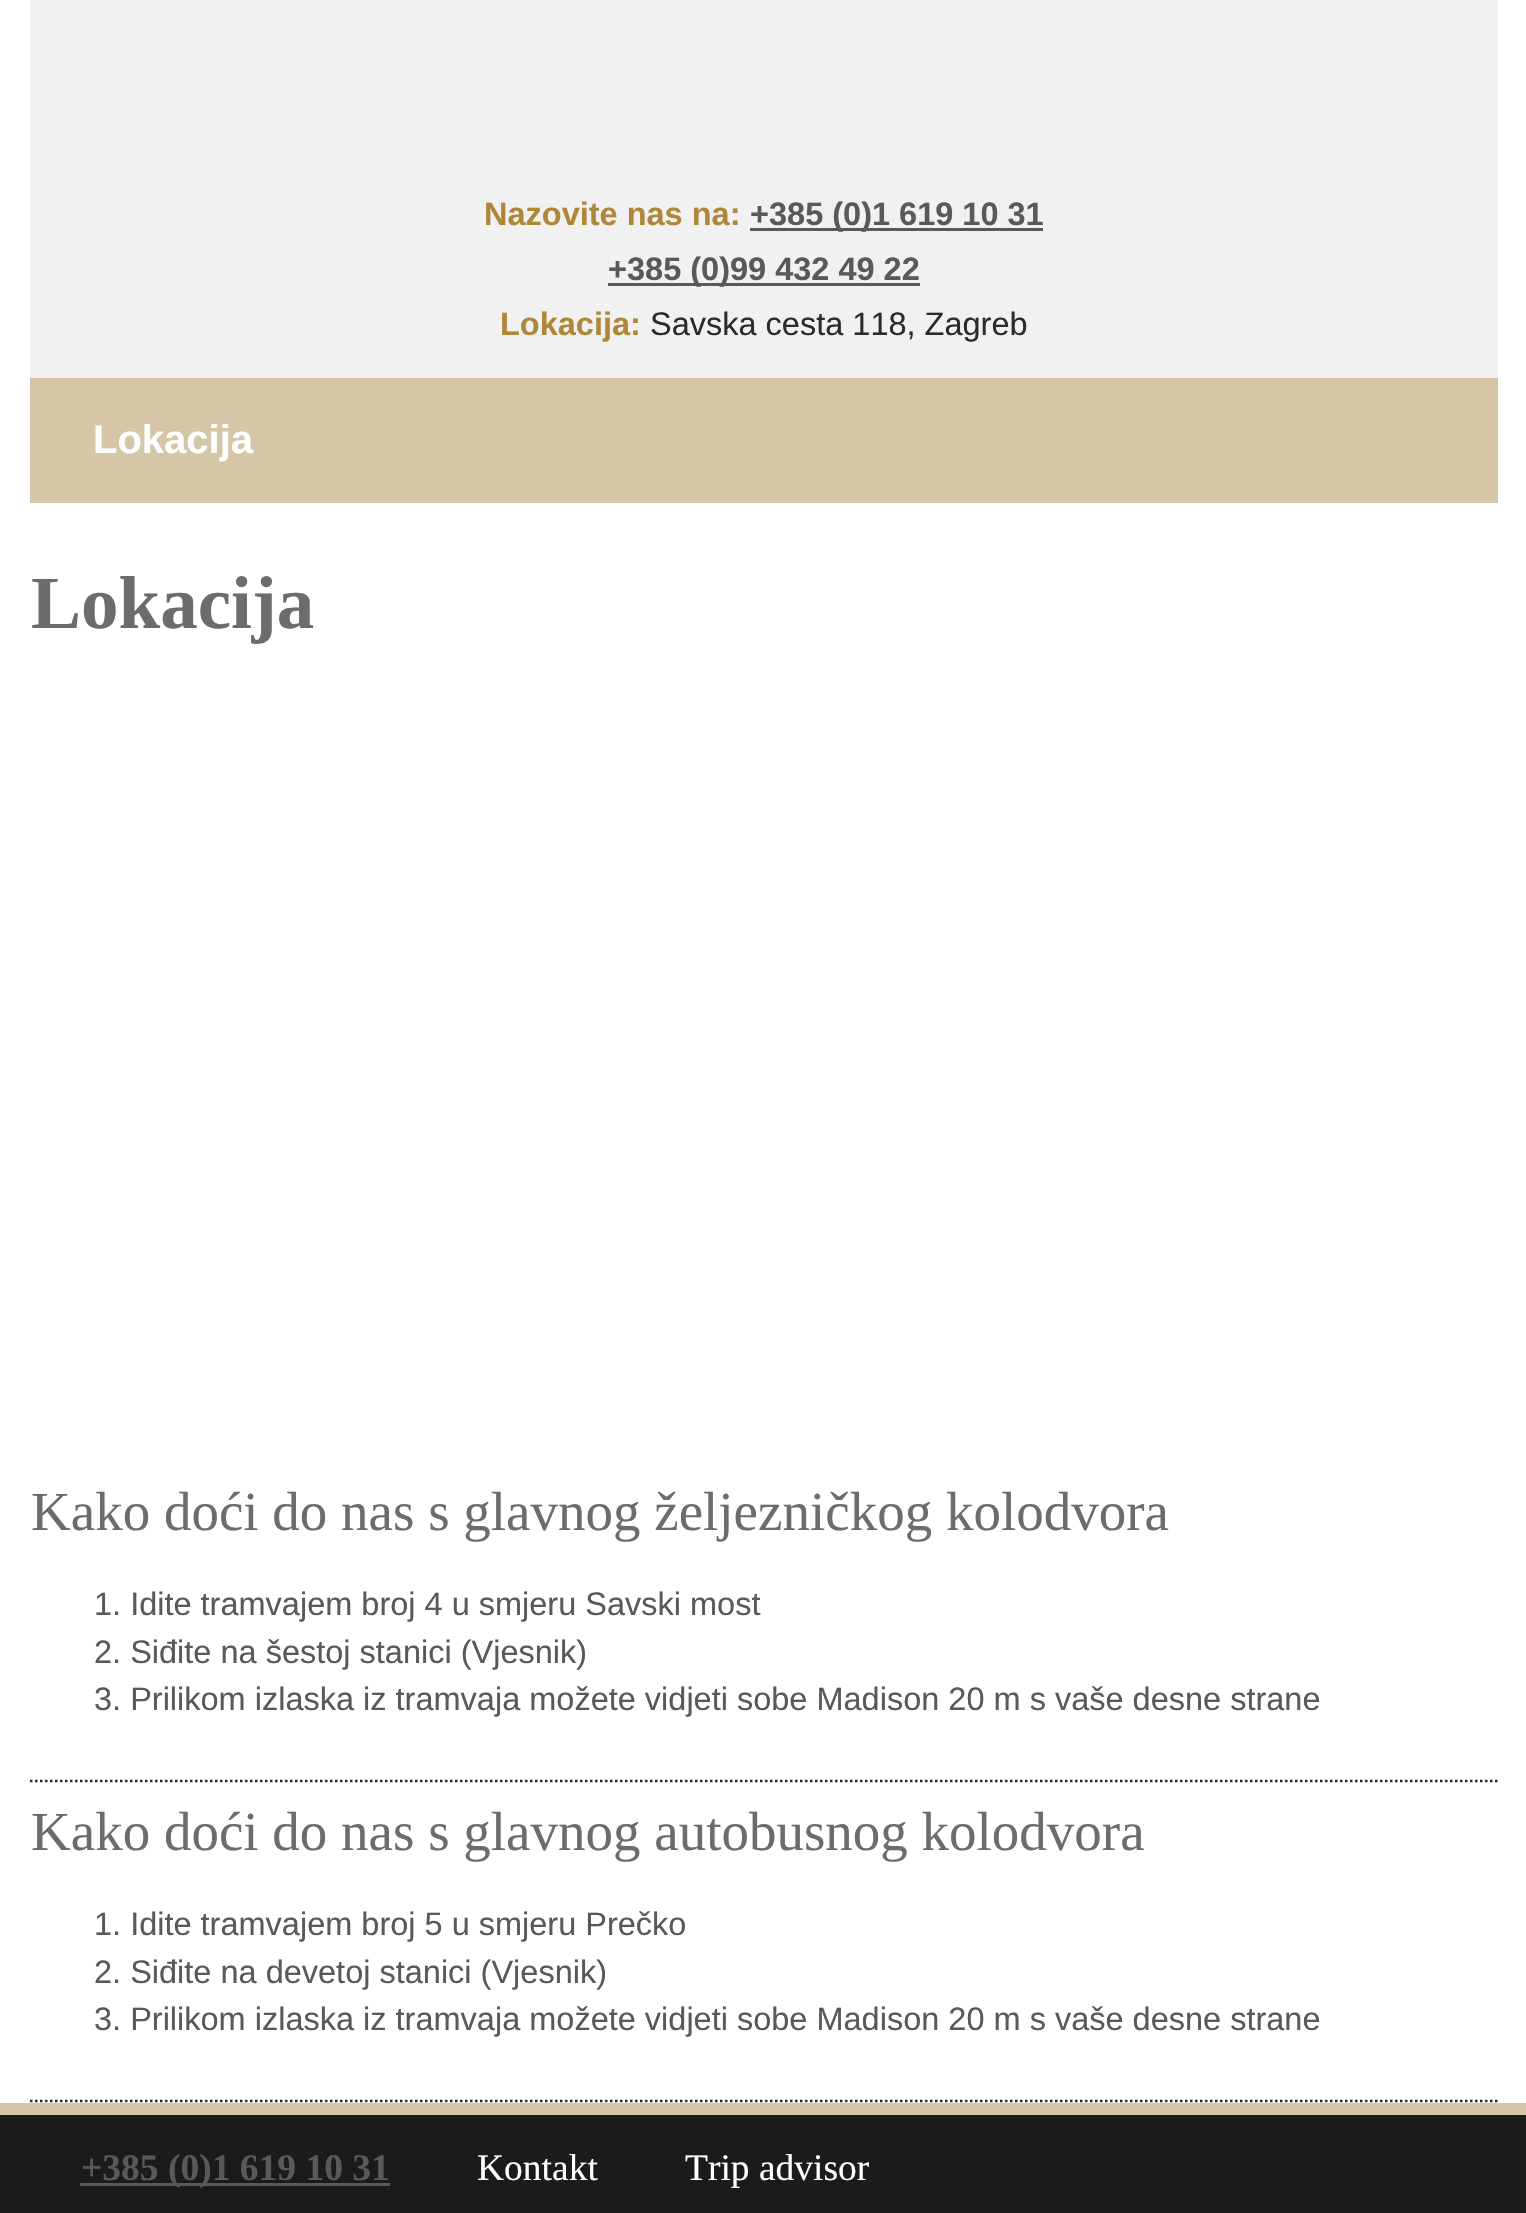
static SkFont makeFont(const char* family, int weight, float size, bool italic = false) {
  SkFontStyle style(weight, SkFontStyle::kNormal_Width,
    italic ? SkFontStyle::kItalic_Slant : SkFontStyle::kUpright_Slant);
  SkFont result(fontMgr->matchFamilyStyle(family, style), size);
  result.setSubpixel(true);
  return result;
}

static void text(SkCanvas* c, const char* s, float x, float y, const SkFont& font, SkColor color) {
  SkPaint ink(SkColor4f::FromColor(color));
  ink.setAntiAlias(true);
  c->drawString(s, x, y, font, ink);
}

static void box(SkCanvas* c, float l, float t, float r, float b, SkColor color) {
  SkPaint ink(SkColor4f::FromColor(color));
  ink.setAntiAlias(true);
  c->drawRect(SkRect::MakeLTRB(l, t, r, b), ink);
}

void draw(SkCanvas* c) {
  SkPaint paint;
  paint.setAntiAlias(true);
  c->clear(0xffffffff);
  box(c, 30, 0, 1498, 378, 0xfff1f1f1);
  SkFont face1 = makeFont("Liberation Sans", 700, 32.5f);
  text(c, "Nazovite nas na:", 484, 225, face1, 0xffaf8739);
  box(c, 750, 228, 1043, 231, 0xff595959);
  text(c, "+385 (0)1 619 10 31", 750, 225, face1, 0xff595959);
  box(c, 608, 283, 920, 286, 0xff595959);
  text(c, "+385 (0)99 432 49 22", 608, 280, face1, 0xff595959);
  text(c, "Lokacija:", 500, 335, face1, 0xffaf8739);
  SkFont face2 = makeFont("Liberation Sans", 400, 32.5f);
  text(c, "Savska cesta 118, Zagreb", 650, 335, face2, 0xff2b2b2b);
  box(c, 30, 378, 1498, 503, 0xffd5c6a7);
  SkFont face3 = makeFont("Liberation Sans", 700, 40);
  text(c, "Lokacija", 93, 453, face3, 0xffffffff);
  SkFont face4 = makeFont("Liberation Serif", 700, 75);
  text(c, "Lokacija", 31, 628, face4, 0xff6c6c6c);
  SkFont face5 = makeFont("Liberation Serif", 400, 55);
  text(c, "Kako doći do nas s glavnog željezničkog kolodvora", 31, 1530, face5, 0xff6c6c6c);
  paint.setStyle(SkPaint::kStroke_Style);
  paint.setStrokeWidth(2.5f);
  paint.setColor(0xff2a2a2a);
  paint.setPathEffect(SkDashPathEffect::Make({{2.5f, 2.5f}}, 0));
  c->drawPath(SkPathBuilder().moveTo(30, 1781).lineTo(1497.5f, 1781).detach(), paint);
  paint.setPathEffect(nullptr);
  text(c, "1. Idite tramvajem broj 4 u smjeru Savski most", 94, 1615, face2, 0xff595959);
  text(c, "2. Siđite na šestoj stanici (Vjesnik)", 94, 1663, face2, 0xff595959);
  text(c, "3. Prilikom izlaska iz tramvaja možete vidjeti sobe Madison 20 m s vaše desne strane", 94, 1710, face2, 0xff595959);
  text(c, "Kako doći do nas s glavnog autobusnog kolodvora", 31, 1850, face5, 0xff6c6c6c);
  paint.setPathEffect(SkDashPathEffect::Make({{2.5f, 2.5f}}, 0));
  c->drawPath(SkPathBuilder().moveTo(30, 2101).lineTo(1497.5f, 2101).detach(), paint);
  paint.setPathEffect(nullptr);
  text(c, "1. Idite tramvajem broj 5 u smjeru Prečko", 94, 1935, face2, 0xff595959);
  text(c, "2. Siđite na devetoj stanici (Vjesnik)", 94, 1983, face2, 0xff595959);
  text(c, "3. Prilikom izlaska iz tramvaja možete vidjeti sobe Madison 20 m s vaše desne strane", 94, 2030, face2, 0xff595959);
  box(c, 0, 2115, 1526, 2213, 0xff1b1b1b);
  box(c, 0, 2103, 1526, 2115, 0xffd5c6a9);
  box(c, 80, 2183, 390, 2186, 0xff595959);
  SkFont face6 = makeFont("Liberation Serif", 700, 37.5f);
  text(c, "+385 (0)1 619 10 31", 81, 2180, face6, 0xff595959);
  SkFont face7 = makeFont("Liberation Serif", 400, 37.5f);
  text(c, "Kontakt", 477, 2180, face7, 0xffffffff);
  text(c, "Trip advisor", 685, 2180, face7, 0xffffffff);
}
